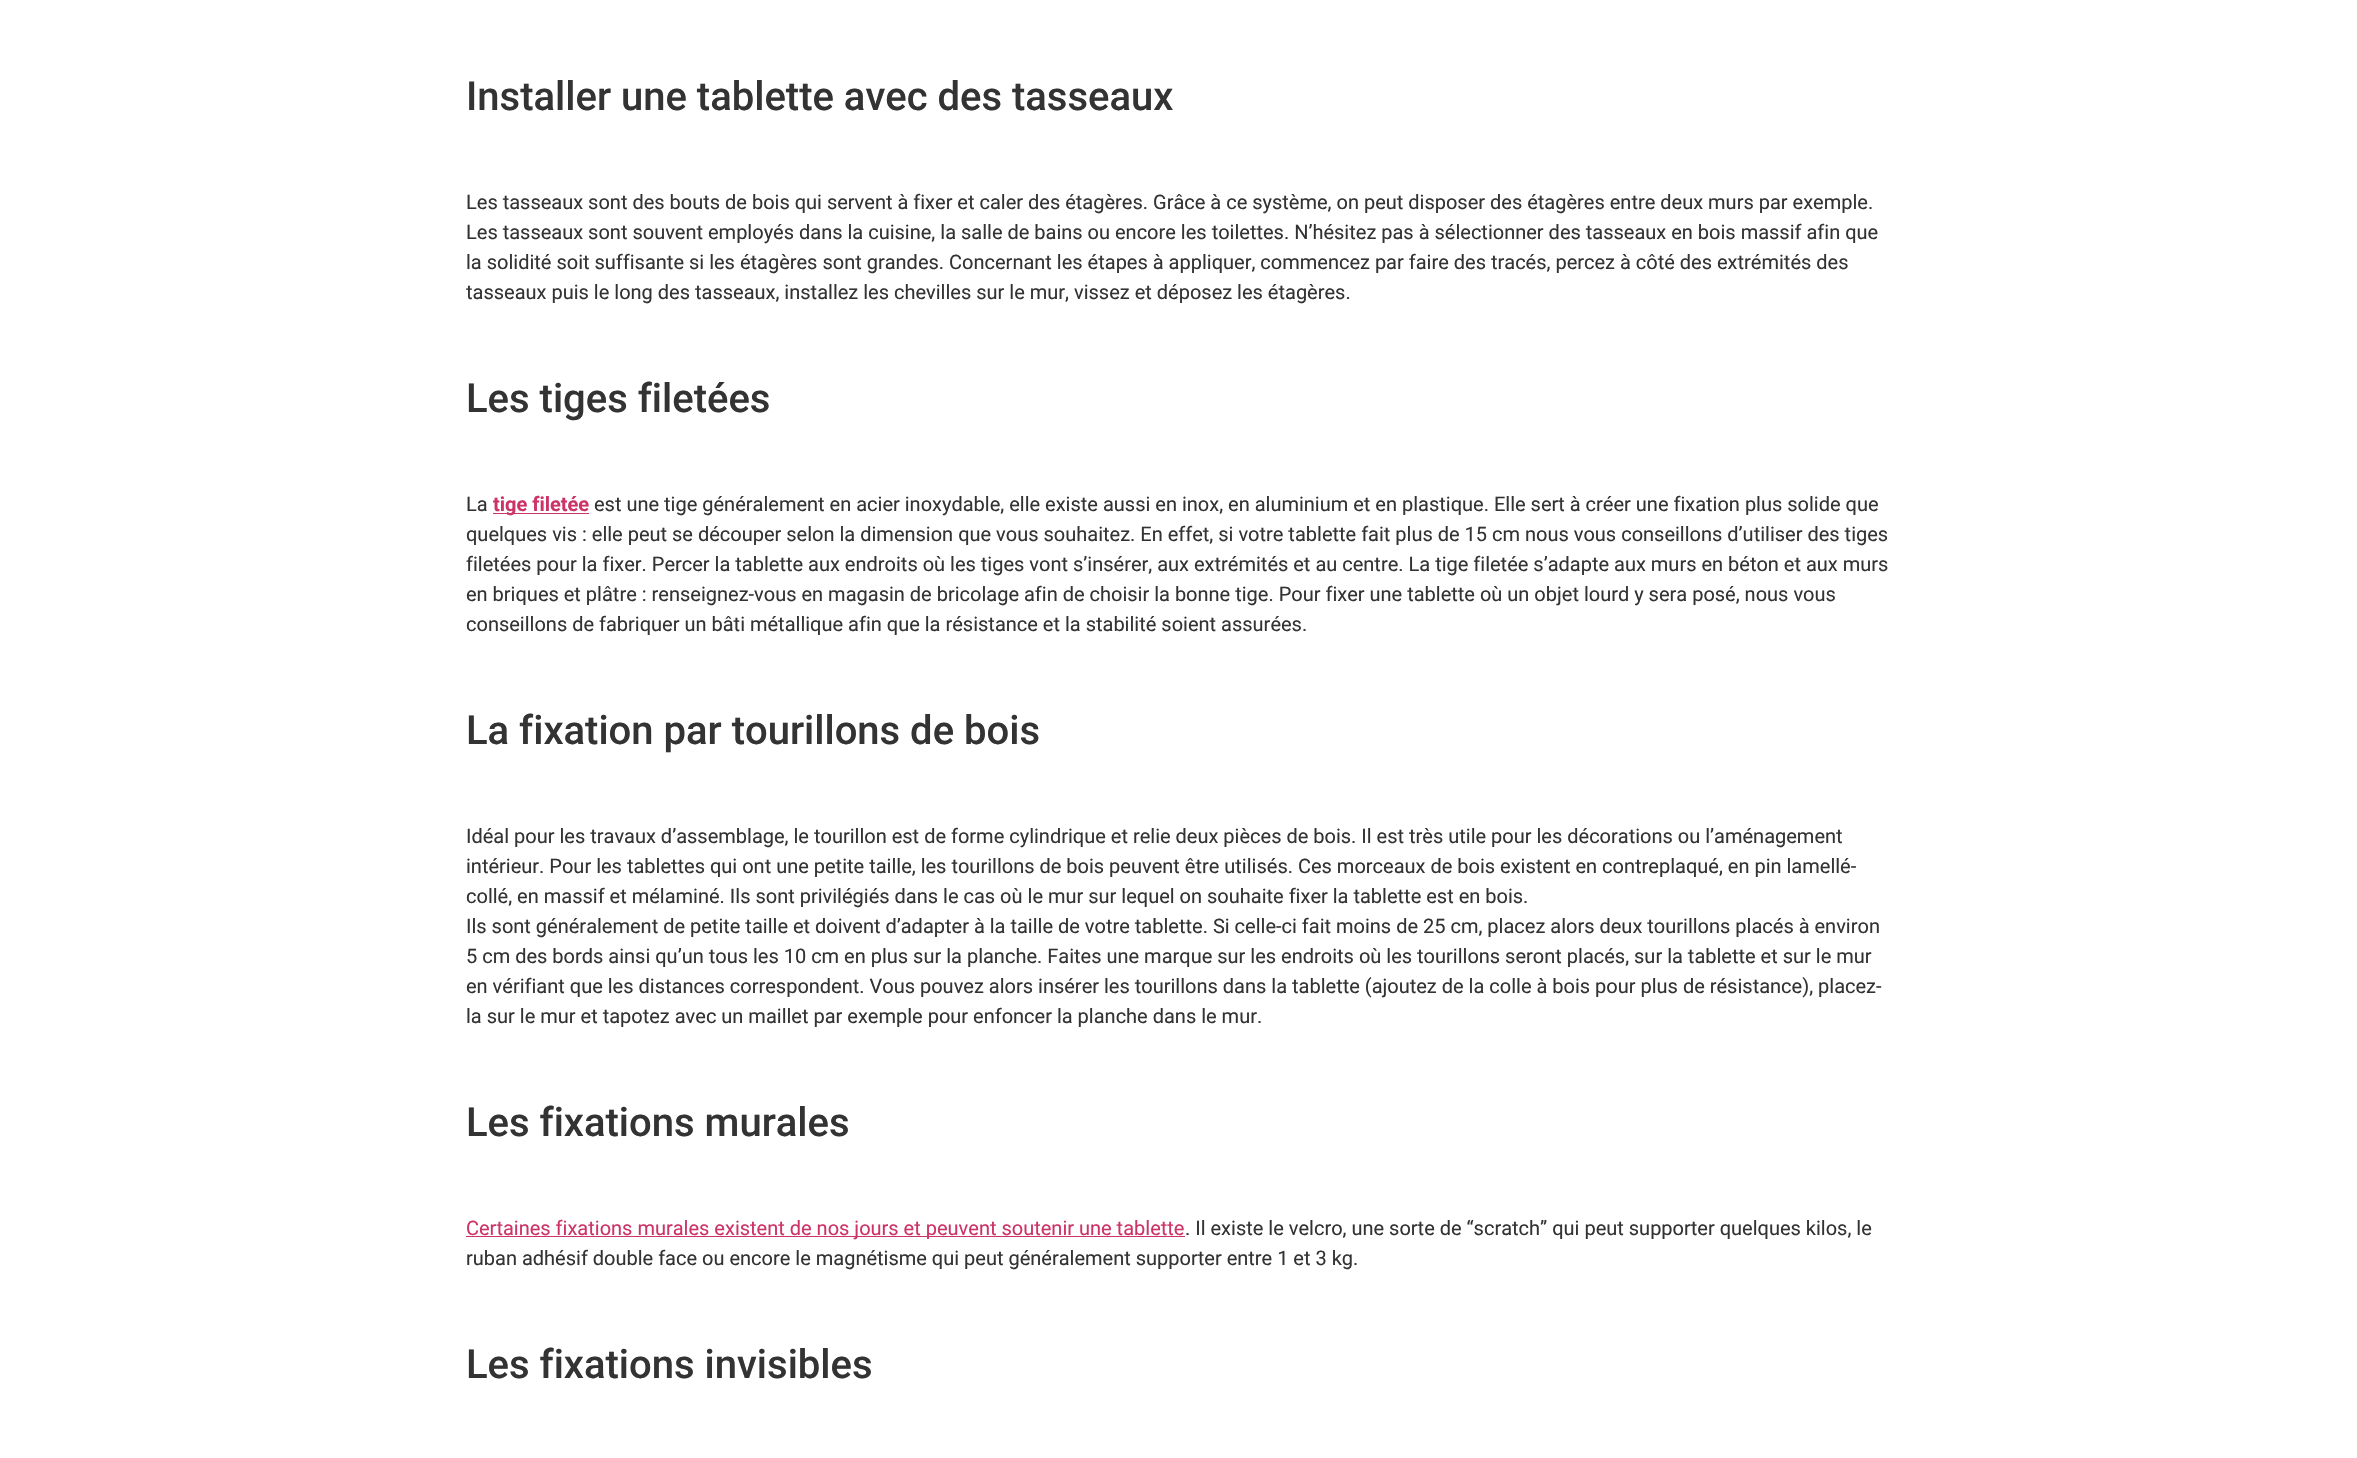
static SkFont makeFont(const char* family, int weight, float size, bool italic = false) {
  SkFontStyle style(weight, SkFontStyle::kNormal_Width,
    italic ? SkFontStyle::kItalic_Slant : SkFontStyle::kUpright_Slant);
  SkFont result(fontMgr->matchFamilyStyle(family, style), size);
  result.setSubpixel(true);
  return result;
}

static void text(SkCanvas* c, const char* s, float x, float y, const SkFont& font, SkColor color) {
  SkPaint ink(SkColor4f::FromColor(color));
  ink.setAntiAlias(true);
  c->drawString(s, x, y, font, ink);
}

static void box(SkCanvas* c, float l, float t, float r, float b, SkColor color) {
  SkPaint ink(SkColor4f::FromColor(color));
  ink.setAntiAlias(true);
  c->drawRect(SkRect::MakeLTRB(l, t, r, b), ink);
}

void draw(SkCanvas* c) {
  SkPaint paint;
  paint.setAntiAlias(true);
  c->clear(0xffffffff);
  SkFont face1 = makeFont("Roboto", 500, 40);
  text(c, "Installer une tablette avec des tasseaux", 466, 110, face1, 0xff333333);
  SkFont face2 = makeFont("Roboto", 400, 20);
  text(c, "Les tasseaux sont des bouts de bois qui servent à fixer et caler des étagères. Grâce à ce système, on peut disposer des étagères entre deux murs par exemple.", 466, 209, face2, 0xff333333);
  text(c, "Les tasseaux sont souvent employés dans la cuisine, la salle de bains ou encore les toilettes. N’hésitez pas à sélectionner des tasseaux en bois massif afin que", 466, 239, face2, 0xff333333);
  text(c, "la solidité soit suffisante si les étagères sont grandes. Concernant les étapes à appliquer, commencez par faire des tracés, percez à côté des extrémités des", 466, 269, face2, 0xff333333);
  text(c, "tasseaux puis le long des tasseaux, installez les chevilles sur le mur, vissez et déposez les étagères.", 466, 299, face2, 0xff333333);
  text(c, "Les tiges filetées", 466, 412, face1, 0xff333333);
  text(c, "La", 466, 511, face2, 0xff333333);
  box(c, 493, 513, 589, 514, 0xffcc3366);
  SkFont face3 = makeFont("Roboto", 700, 20);
  text(c, "tige filetée", 493, 511, face3, 0xffcc3366);
  text(c, "est une tige généralement en acier inoxydable, elle existe aussi en inox, en aluminium et en plastique. Elle sert à créer une fixation plus solide que", 594, 511, face2, 0xff333333);
  text(c, "quelques vis : elle peut se découper selon la dimension que vous souhaitez. En effet, si votre tablette fait plus de 15 cm nous vous conseillons d’utiliser des tiges", 466, 541, face2, 0xff333333);
  text(c, "filetées pour la fixer. Percer la tablette aux endroits où les tiges vont s’insérer, aux extrémités et au centre. La tige filetée s’adapte aux murs en béton et aux murs", 466, 571, face2, 0xff333333);
  text(c, "en briques et plâtre : renseignez-vous en magasin de bricolage afin de choisir la bonne tige. Pour fixer une tablette où un objet lourd y sera posé, nous vous", 466, 601, face2, 0xff333333);
  text(c, "conseillons de fabriquer un bâti métallique afin que la résistance et la stabilité soient assurées.", 466, 631, face2, 0xff333333);
  text(c, "La fixation par tourillons de bois", 466, 744, face1, 0xff333333);
  text(c, "Idéal pour les travaux d’assemblage, le tourillon est de forme cylindrique et relie deux pièces de bois. Il est très utile pour les décorations ou l’aménagement", 466, 843, face2, 0xff333333);
  text(c, "intérieur. Pour les tablettes qui ont une petite taille, les tourillons de bois peuvent être utilisés. Ces morceaux de bois existent en contreplaqué, en pin lamellé-", 466, 873, face2, 0xff333333);
  text(c, "collé, en massif et mélaminé. Ils sont privilégiés dans le cas où le mur sur lequel on souhaite fixer la tablette est en bois.", 466, 903, face2, 0xff333333);
  text(c, "Ils sont généralement de petite taille et doivent d’adapter à la taille de votre tablette. Si celle-ci fait moins de 25 cm, placez alors deux tourillons placés à environ", 466, 933, face2, 0xff333333);
  text(c, "5 cm des bords ainsi qu’un tous les 10 cm en plus sur la planche. Faites une marque sur les endroits où les tourillons seront placés, sur la tablette et sur le mur", 466, 963, face2, 0xff333333);
  text(c, "en vérifiant que les distances correspondent. Vous pouvez alors insérer les tourillons dans la tablette (ajoutez de la colle à bois pour plus de résistance), placez-", 466, 993, face2, 0xff333333);
  text(c, "la sur le mur et tapotez avec un maillet par exemple pour enfoncer la planche dans le mur.", 466, 1023, face2, 0xff333333);
  text(c, "Les fixations murales", 466, 1136, face1, 0xff333333);
  box(c, 466, 1236, 1185, 1237, 0xffcc3366);
  text(c, "Certaines fixations murales existent de nos jours et peuvent soutenir une tablette", 466, 1235, face2, 0xffcc3366);
  text(c, ". Il existe le velcro, une sorte de “scratch” qui peut supporter quelques kilos, le", 1185, 1235, face2, 0xff333333);
  text(c, "ruban adhésif double face ou encore le magnétisme qui peut généralement supporter entre 1 et 3 kg.", 466, 1265, face2, 0xff333333);
  text(c, "Les fixations invisibles", 466, 1378, face1, 0xff333333);
}
